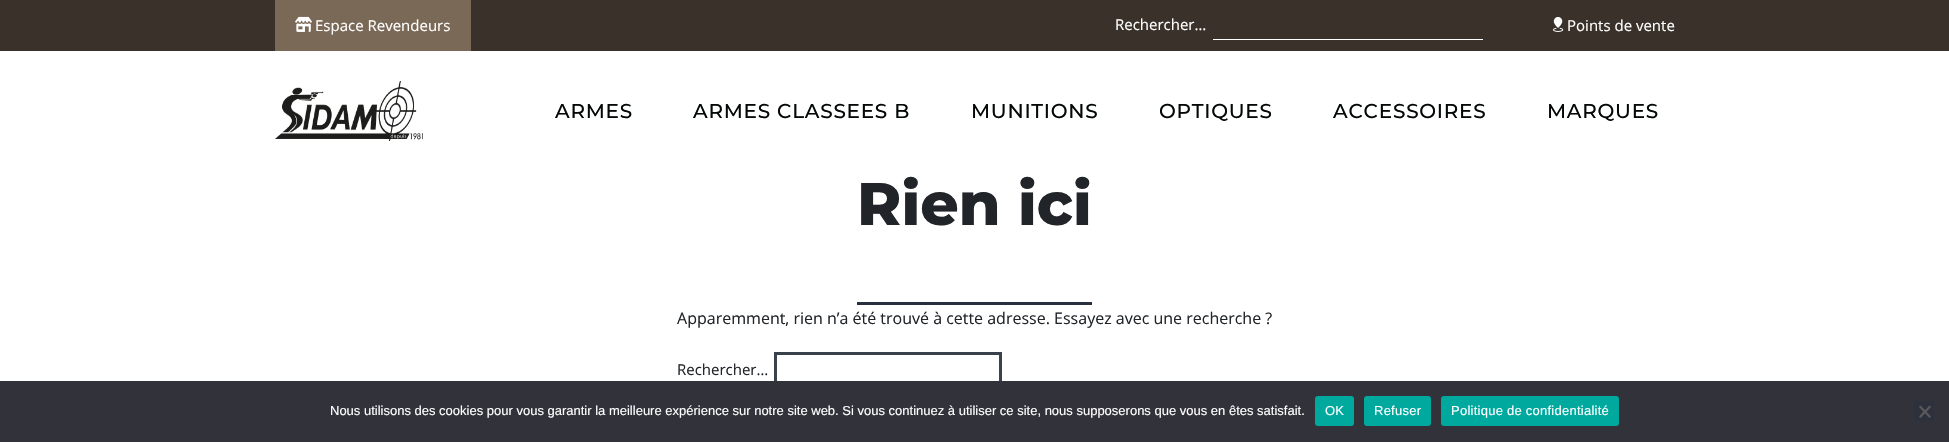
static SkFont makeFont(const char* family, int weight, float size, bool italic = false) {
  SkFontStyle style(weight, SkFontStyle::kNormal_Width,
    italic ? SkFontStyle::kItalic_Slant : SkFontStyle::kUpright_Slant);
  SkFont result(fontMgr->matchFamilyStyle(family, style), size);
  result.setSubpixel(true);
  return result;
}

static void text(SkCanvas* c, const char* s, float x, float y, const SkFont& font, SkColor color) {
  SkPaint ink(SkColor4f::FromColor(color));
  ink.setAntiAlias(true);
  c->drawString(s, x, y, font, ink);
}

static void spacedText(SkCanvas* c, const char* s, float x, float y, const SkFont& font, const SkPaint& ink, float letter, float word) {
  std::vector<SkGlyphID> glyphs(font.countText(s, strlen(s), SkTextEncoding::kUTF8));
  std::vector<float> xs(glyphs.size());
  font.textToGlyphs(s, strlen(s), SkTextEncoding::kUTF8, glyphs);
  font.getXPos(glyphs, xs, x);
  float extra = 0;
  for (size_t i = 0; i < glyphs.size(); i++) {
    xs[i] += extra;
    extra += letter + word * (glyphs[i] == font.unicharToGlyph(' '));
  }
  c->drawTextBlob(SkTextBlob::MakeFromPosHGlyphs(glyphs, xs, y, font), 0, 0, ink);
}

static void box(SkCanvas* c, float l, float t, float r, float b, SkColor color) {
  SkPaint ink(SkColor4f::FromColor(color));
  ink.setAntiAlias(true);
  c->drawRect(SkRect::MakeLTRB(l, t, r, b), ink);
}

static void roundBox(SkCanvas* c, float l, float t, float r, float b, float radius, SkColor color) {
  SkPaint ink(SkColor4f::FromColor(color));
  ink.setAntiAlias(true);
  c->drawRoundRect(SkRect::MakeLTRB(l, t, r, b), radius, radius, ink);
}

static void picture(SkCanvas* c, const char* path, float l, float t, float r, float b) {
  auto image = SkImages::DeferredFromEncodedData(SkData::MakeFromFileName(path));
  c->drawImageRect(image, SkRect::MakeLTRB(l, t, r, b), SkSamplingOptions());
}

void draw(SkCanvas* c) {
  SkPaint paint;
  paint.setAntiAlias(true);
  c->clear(0xffffffff);
  box(c, 0, 0, 1949, 51, 0xff3a322a);
  box(c, 275, 0, 471, 51, 0xff7b6957);
  picture(c, "img_01.png", 295, 16, 312, 32);
  SkFont face1 = makeFont("Open Sans", 400, 15);
  text(c, "Espace Revendeurs", 315, 31, face1, 0xffffffff);
  text(c, "Rechercher…", 1115, 30, face1, 0xffffffff);
  box(c, 1213, 39, 1483, 40, 0xffffffff);
  picture(c, "img_02.png", 1553, 17, 1564, 32);
  text(c, "Points de vente", 1567, 31, face1, 0xffffffff);
  picture(c, "img_03.png", 275, 81, 423, 141);
  SkFont face2 = makeFont("Montserrat", 500, 20);
  paint.setColor(0xff040908);
  spacedText(c, "ARMES", 555, 118, face2, paint, 0.75f, 0);
  spacedText(c, "ARMES CLASSEES B", 693, 118, face2, paint, 0.75f, 0);
  spacedText(c, "MUNITIONS", 971, 118, face2, paint, 0.75f, 0);
  spacedText(c, "OPTIQUES", 1159, 118, face2, paint, 0.75f, 0);
  spacedText(c, "ACCESSOIRES", 1333, 118, face2, paint, 0.75f, 0);
  spacedText(c, "MARQUES", 1547, 118, face2, paint, 0.75f, 0);
  box(c, 857, 302, 1092, 305, 0xff28303d);
  SkFont face3 = makeFont("Montserrat", 800, 60);
  text(c, "Rien ici", 857, 225, face3, 0xff212529);
  SkFont face4 = makeFont("Open Sans", 400, 16);
  text(c, "Apparemment, rien n’a été trouvé à cette adresse. Essayez avec une recherche ?", 677, 324, face4, 0xff212529);
  text(c, "Rechercher…", 677, 375, face1, 0xff212529);
  paint.setStyle(SkPaint::kStroke_Style);
  paint.setStrokeWidth(3);
  paint.setColor(0xff39414d);
  c->drawRect(SkRect::MakeLTRB(775.5f, 353.5f, 1000.5f, 385.5f), paint);
  box(c, 0, 381, 1949, 442, 0xff32323a);
  SkFont face5 = makeFont("Liberation Sans", 400, 13);
  text(c, "Nous utilisons des cookies pour vous garantir la meilleure expérience sur notre site web. Si vous continuez à utiliser ce site, nous supposerons que vous en êtes satisfait.", 330, 415, face5, 0xffffffff);
  roundBox(c, 1315, 396, 1354, 426, 3, 0xff00a99d);
  paint.setStyle(SkPaint::kFill_Style);
  paint.setColor(0xffffffff);
  spacedText(c, "OK", 1325, 415, face5, paint, 0.25f, 0);
  roundBox(c, 1364, 396, 1431, 426, 3, 0xff00a99d);
  spacedText(c, "Refuser", 1374, 415, face5, paint, 0.25f, 0);
  roundBox(c, 1441, 396, 1619, 426, 3, 0xff00a99d);
  spacedText(c, "Politique de confidentialité", 1451, 415, face5, paint, 0.25f, 0);
  box(c, 1914, 401, 1934, 421, 0xff2d313c);
  paint.setColor(0xff59595d);
  c->drawPath(SkPathBuilder().moveTo(1929.5f, 405.5f).lineTo(1931, 407).lineTo(1920.5f, 418).lineTo(1919, 416.5f).close().detach(), paint);
  c->drawPath(SkPathBuilder().moveTo(1919, 407).lineTo(1920.5f, 405.5f).lineTo(1931, 416.5f).lineTo(1929.5f, 418).close().detach(), paint);
}
